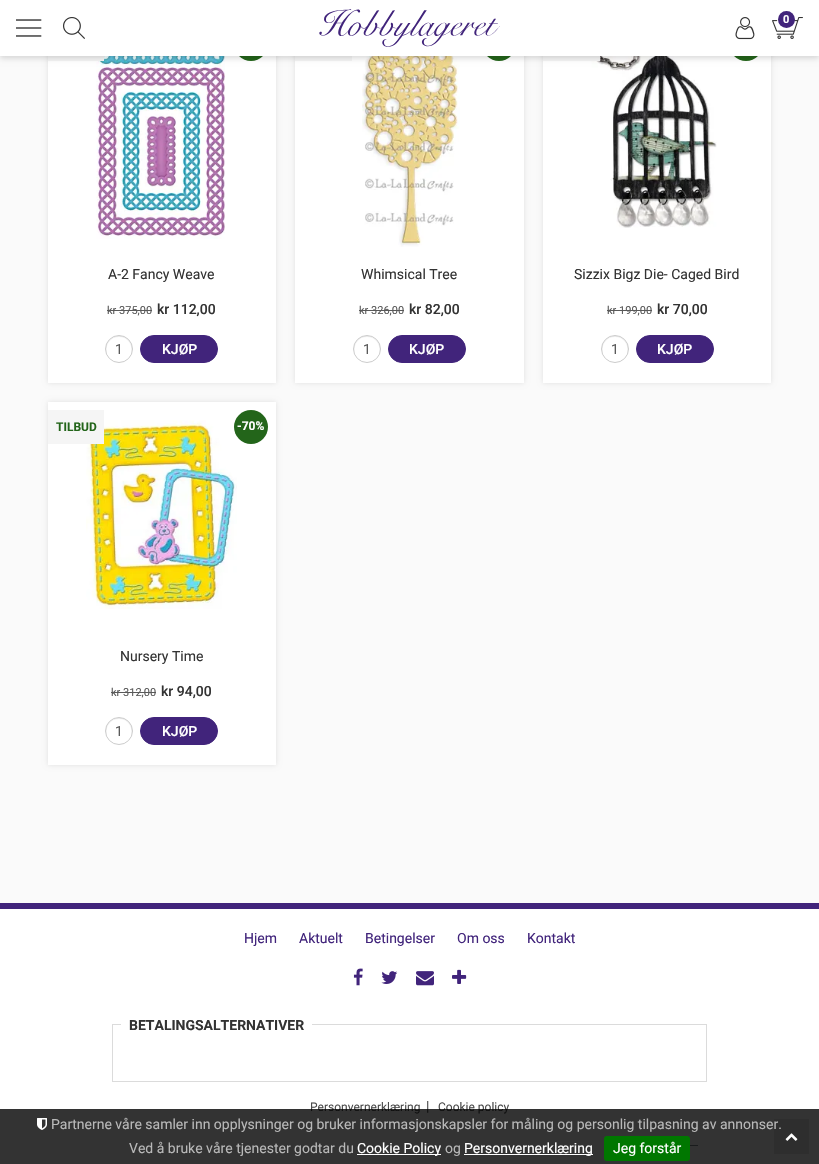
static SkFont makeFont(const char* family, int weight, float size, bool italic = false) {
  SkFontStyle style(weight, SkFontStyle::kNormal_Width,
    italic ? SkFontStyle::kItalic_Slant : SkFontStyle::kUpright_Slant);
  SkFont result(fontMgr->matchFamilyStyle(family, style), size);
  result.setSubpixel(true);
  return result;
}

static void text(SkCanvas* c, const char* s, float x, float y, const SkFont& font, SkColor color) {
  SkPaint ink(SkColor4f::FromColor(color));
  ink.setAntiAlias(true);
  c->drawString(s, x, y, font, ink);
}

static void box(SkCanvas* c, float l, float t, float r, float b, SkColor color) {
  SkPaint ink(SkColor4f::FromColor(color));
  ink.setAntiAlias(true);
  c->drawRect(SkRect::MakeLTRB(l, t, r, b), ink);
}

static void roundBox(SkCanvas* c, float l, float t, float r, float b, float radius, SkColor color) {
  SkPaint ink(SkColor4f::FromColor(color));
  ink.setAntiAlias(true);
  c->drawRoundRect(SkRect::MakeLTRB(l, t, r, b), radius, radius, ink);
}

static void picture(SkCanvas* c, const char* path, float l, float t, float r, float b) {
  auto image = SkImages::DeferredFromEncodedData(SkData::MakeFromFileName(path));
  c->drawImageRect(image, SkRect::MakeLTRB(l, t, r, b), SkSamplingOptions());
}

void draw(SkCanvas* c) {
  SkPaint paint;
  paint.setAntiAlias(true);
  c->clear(0xfffafafa);
  paint.setColor(0x1a000000);
  paint.setMaskFilter(SkMaskFilter::MakeBlur(kNormal_SkBlurStyle, 2.5f));
  c->drawRect(SkRect::MakeLTRB(48, 19, 276, 383), paint);
  paint.setMaskFilter(nullptr);
  box(c, 48, 56, 276, 383, 0xffffffff);
  paint.setColor(0xff23651a);
  c->drawCircle(251, 44, 17, paint);
  picture(c, "img_06.png", 96, 56, 225, 239);
  box(c, 48, 56, 104, 61, 0xfff5f5f5);
  paint.setColor(0x1a000000);
  paint.setMaskFilter(SkMaskFilter::MakeBlur(kNormal_SkBlurStyle, 2.5f));
  c->drawRect(SkRect::MakeLTRB(295, 19, 524, 383), paint);
  paint.setMaskFilter(nullptr);
  box(c, 295, 56, 524, 383, 0xffffffff);
  paint.setColor(0xff23651a);
  c->drawCircle(499, 44, 17, paint);
  box(c, 295, 56, 352, 61, 0xfff5f5f5);
  picture(c, "img_07.png", 362, 56, 460, 247);
  paint.setColor(0x1a000000);
  paint.setMaskFilter(SkMaskFilter::MakeBlur(kNormal_SkBlurStyle, 2.5f));
  c->drawRect(SkRect::MakeLTRB(543, 19, 771, 383), paint);
  paint.setMaskFilter(nullptr);
  box(c, 543, 56, 771, 383, 0xffffffff);
  paint.setColor(0xff23651a);
  c->drawCircle(746, 44, 17, paint);
  picture(c, "img_08.png", 591, 56, 717, 228);
  box(c, 543, 56, 600, 61, 0xfff5f5f5);
  paint.setColor(0x29000000);
  paint.setMaskFilter(SkMaskFilter::MakeBlur(kNormal_SkBlurStyle, 3));
  c->drawRect(SkRect::MakeLTRB(0, 2, 819, 58), paint);
  paint.setMaskFilter(nullptr);
  box(c, 0, 0, 819, 56, 0xffffffff);
  picture(c, "img_01.png", 16, 19, 42, 37);
  picture(c, "img_02.png", 63, 17, 85, 39);
  picture(c, "img_03.png", 319, 9, 500, 47);
  picture(c, "img_04.png", 735, 17, 755, 40);
  picture(c, "img_05.png", 772, 17, 803, 39);
  paint.setColor(0xff41247b);
  c->drawCircle(786.5f, 19.5f, 8.5f, paint);
  SkFont face1 = makeFont("Roboto", 700, 11);
  text(c, "0", 783, 23, face1, 0xffffffff);
  SkFont face2 = makeFont("Roboto", 400, 14);
  text(c, "A-2 Fancy Weave", 108, 279, face2, 0xff333333);
  SkFont face3 = makeFont("Roboto", 400, 11);
  text(c, "kr 375,00", 107, 314, face3, 0xff595959);
  box(c, 107, 310, 152, 311, 0xff595959);
  SkFont face4 = makeFont("Roboto", 500, 14);
  text(c, "kr 112,00", 157, 314, face4, 0xff333333);
  paint.setColor(0xffececec);
  c->drawPath(SkPathBuilder().moveTo(119, 337).cubicTo(128.5f, 337, 132.5f, 345, 131.5f, 352.5f).cubicTo(132.5f, 349.5f, 132, 346.5f, 131, 344).cubicTo(124.5f, 329, 102.5f, 337, 106.5f, 352.5f).cubicTo(105.5f, 345, 109.5f, 337, 119, 337).close().detach(), paint);
  paint.setStyle(SkPaint::kStroke_Style);
  paint.setStrokeWidth(1);
  paint.setColor(0xffcccccc);
  c->drawCircle(119, 349, 13.5f, paint);
  text(c, "1", 115, 354, face2, 0xff595959);
  paint.setStyle(SkPaint::kFill_Style);
  paint.setColor(0xff41247b);
  c->drawRoundRect(SkRect::MakeLTRB(140.5f, 335.5f, 217.5f, 362.5f), 13.5f, 13.5f, paint);
  paint.setStyle(SkPaint::kStroke_Style);
  c->drawRoundRect(SkRect::MakeLTRB(140.5f, 335.5f, 217.5f, 362.5f), 13.5f, 13.5f, paint);
  text(c, "KJØP", 162, 354, face4, 0xffffffff);
  text(c, "Whimsical Tree", 361, 279, face2, 0xff333333);
  text(c, "kr 326,00", 359, 314, face3, 0xff595959);
  box(c, 359, 310, 404, 311, 0xff595959);
  text(c, "kr 82,00", 409, 314, face4, 0xff333333);
  paint.setStyle(SkPaint::kFill_Style);
  paint.setColor(0xffececec);
  c->drawPath(SkPathBuilder().moveTo(367, 337).cubicTo(376.5f, 337, 380.5f, 345, 379.5f, 352.5f).cubicTo(383.5f, 337, 361.5f, 329, 355, 344).cubicTo(354, 346.5f, 353.5f, 349.5f, 354.5f, 352.5f).cubicTo(353.5f, 345, 357.5f, 337, 367, 337).close().detach(), paint);
  paint.setStyle(SkPaint::kStroke_Style);
  paint.setColor(0xffcccccc);
  c->drawCircle(367, 349, 13.5f, paint);
  text(c, "1", 363, 354, face2, 0xff595959);
  paint.setStyle(SkPaint::kFill_Style);
  paint.setColor(0xff41247b);
  c->drawRoundRect(SkRect::MakeLTRB(388.5f, 335.5f, 465.5f, 362.5f), 13.5f, 13.5f, paint);
  paint.setStyle(SkPaint::kStroke_Style);
  c->drawRoundRect(SkRect::MakeLTRB(388.5f, 335.5f, 465.5f, 362.5f), 13.5f, 13.5f, paint);
  text(c, "KJØP", 409, 354, face4, 0xffffffff);
  text(c, "Sizzix Bigz Die- Caged Bird", 574, 279, face2, 0xff333333);
  text(c, "kr 199,00", 607, 314, face3, 0xff595959);
  box(c, 607, 310, 652, 311, 0xff595959);
  text(c, "kr 70,00", 657, 314, face4, 0xff333333);
  paint.setStyle(SkPaint::kFill_Style);
  paint.setColor(0xffececec);
  c->drawPath(SkPathBuilder().moveTo(615, 337).cubicTo(624.5f, 337, 628.5f, 345, 627.5f, 352.5f).cubicTo(628.5f, 349.5f, 628, 346.5f, 627, 344).cubicTo(620.5f, 329, 598.5f, 337, 602.5f, 352.5f).cubicTo(601.5f, 345, 605.5f, 337, 615, 337).close().detach(), paint);
  paint.setStyle(SkPaint::kStroke_Style);
  paint.setColor(0xffcccccc);
  c->drawCircle(615, 349, 13.5f, paint);
  text(c, "1", 611, 354, face2, 0xff595959);
  paint.setStyle(SkPaint::kFill_Style);
  paint.setColor(0xff41247b);
  c->drawRoundRect(SkRect::MakeLTRB(636.5f, 335.5f, 713.5f, 362.5f), 13.5f, 13.5f, paint);
  paint.setStyle(SkPaint::kStroke_Style);
  c->drawRoundRect(SkRect::MakeLTRB(636.5f, 335.5f, 713.5f, 362.5f), 13.5f, 13.5f, paint);
  text(c, "KJØP", 657, 354, face4, 0xffffffff);
  paint.setStyle(SkPaint::kFill_Style);
  paint.setColor(0x1a000000);
  paint.setMaskFilter(SkMaskFilter::MakeBlur(kNormal_SkBlurStyle, 2.5f));
  c->drawRect(SkRect::MakeLTRB(48, 402, 276, 765), paint);
  paint.setMaskFilter(nullptr);
  box(c, 48, 402, 276, 765, 0xffffffff);
  picture(c, "img_09.png", 86, 420, 237, 609);
  box(c, 48, 410, 104, 444, 0xfff5f5f5);
  SkFont face5 = makeFont("Roboto", 700, 12);
  text(c, "TILBUD", 56, 431, face5, 0xff23651a);
  paint.setColor(0xff23651a);
  c->drawCircle(251, 427, 17, paint);
  text(c, "-70%", 237, 430, face5, 0xffffffff);
  text(c, "Nursery Time", 120, 661, face2, 0xff333333);
  text(c, "kr 312,00", 111, 696, face3, 0xff595959);
  box(c, 111, 692, 156, 693, 0xff595959);
  text(c, "kr 94,00", 161, 696, face4, 0xff333333);
  paint.setColor(0xffececec);
  c->drawPath(SkPathBuilder().moveTo(119, 719).cubicTo(128.5f, 719, 132.5f, 727, 131.5f, 734.5f).cubicTo(132.5f, 731.5f, 132, 728.5f, 131, 726).cubicTo(124.5f, 711, 102.5f, 719, 106.5f, 734.5f).cubicTo(105.5f, 727, 109.5f, 719, 119, 719).close().detach(), paint);
  paint.setStyle(SkPaint::kStroke_Style);
  paint.setColor(0xffcccccc);
  c->drawCircle(119, 731, 13.5f, paint);
  text(c, "1", 115, 736, face2, 0xff595959);
  paint.setStyle(SkPaint::kFill_Style);
  paint.setColor(0xff41247b);
  c->drawRoundRect(SkRect::MakeLTRB(140.5f, 717.5f, 217.5f, 744.5f), 13.5f, 13.5f, paint);
  paint.setStyle(SkPaint::kStroke_Style);
  c->drawRoundRect(SkRect::MakeLTRB(140.5f, 717.5f, 217.5f, 744.5f), 13.5f, 13.5f, paint);
  text(c, "KJØP", 162, 736, face4, 0xffffffff);
  box(c, 0, 909, 819, 1164, 0xffffffff);
  box(c, 0, 903, 819, 909, 0xff41247b);
  text(c, "Hjem", 244, 943, face2, 0xff41247b);
  text(c, "Aktuelt", 299, 943, face2, 0xff41247b);
  text(c, "Betingelser", 365, 943, face2, 0xff41247b);
  text(c, "Om oss", 457, 943, face2, 0xff41247b);
  text(c, "Kontakt", 527, 943, face2, 0xff41247b);
  picture(c, "img_10.png", 353, 968, 363, 986);
  picture(c, "img_11.png", 381, 971, 398, 984);
  picture(c, "img_12.png", 416, 971, 434, 986);
  picture(c, "img_13.png", 452, 969, 467, 984);
  paint.setColor(0xffdbdbdb);
  c->drawRect(SkRect::MakeLTRB(112.5f, 1024.5f, 706.5f, 1081.5f), paint);
  box(c, 121, 1024, 312, 1025, 0xffffffff);
  SkFont face6 = makeFont("Roboto", 700, 14);
  text(c, "BETALINGSALTERNATIVER", 129, 1030, face6, 0xff333333);
  SkFont face7 = makeFont("Roboto", 400, 12);
  text(c, "Personvernerklæring", 310, 1111, face7, 0xff4a4a4a);
  text(c, "|", 426, 1111, face2, 0xff4a4a4a);
  text(c, "Cookie policy", 438, 1111, face7, 0xff4a4a4a);
  box(c, 690, 1145, 698, 1146, 0xff818a91);
  box(c, 0, 1109, 819, 1164, 0xcc000000);
  box(c, 774, 1119, 809, 1154, 0x1a000000);
  picture(c, "img_14.png", 785, 1133, 798, 1141);
  picture(c, "img_15.png", 37, 1118, 47, 1130);
  text(c, "Partnerne våre samler inn opplysninger og bruker informasjonskapsler for måling og personlig tilpasning av annonser.", 51, 1129, face2, 0xffb8b8b8);
  text(c, "Ved å bruke våre tjenester godtar du", 129, 1153, face2, 0xffb8b8b8);
  box(c, 357, 1154, 441, 1155, 0xffffffff);
  text(c, "Cookie Policy", 357, 1153, face2, 0xffffffff);
  text(c, "og", 445, 1153, face2, 0xffb8b8b8);
  box(c, 464, 1154, 593, 1155, 0xffffffff);
  text(c, "Personvernerklæring", 464, 1153, face2, 0xffffffff);
  roundBox(c, 604, 1136, 690, 1161, 3, 0xff007700);
  text(c, "Jeg forstår", 613, 1153, face2, 0xffffffff);
}
